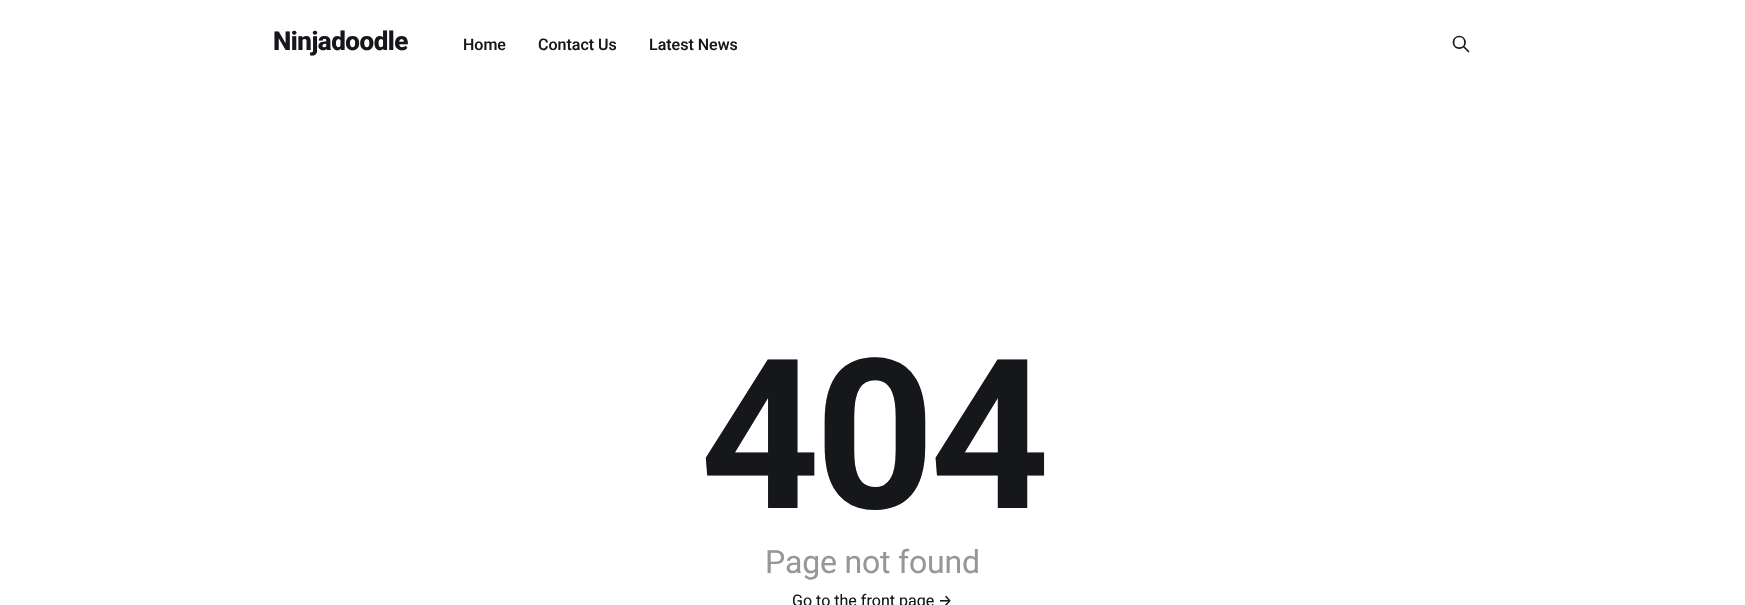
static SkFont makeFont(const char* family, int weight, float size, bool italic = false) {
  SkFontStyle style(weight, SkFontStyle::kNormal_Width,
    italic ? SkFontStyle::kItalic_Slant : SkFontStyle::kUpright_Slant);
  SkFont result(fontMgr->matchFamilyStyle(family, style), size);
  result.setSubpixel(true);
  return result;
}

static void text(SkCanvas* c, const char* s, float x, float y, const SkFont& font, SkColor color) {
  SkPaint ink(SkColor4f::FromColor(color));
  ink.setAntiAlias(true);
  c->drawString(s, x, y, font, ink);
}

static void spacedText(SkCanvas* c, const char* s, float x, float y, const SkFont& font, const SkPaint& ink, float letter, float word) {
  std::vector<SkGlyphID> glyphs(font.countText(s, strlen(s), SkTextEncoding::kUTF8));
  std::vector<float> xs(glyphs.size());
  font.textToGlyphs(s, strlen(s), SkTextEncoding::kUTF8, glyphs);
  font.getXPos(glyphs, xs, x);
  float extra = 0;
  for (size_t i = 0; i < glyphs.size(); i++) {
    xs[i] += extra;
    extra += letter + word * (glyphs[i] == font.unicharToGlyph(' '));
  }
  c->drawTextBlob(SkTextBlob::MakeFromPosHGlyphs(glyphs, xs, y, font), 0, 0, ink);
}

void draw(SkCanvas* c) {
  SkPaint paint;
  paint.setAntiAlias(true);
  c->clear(0xffffffff);
  SkFont face1 = makeFont("Roboto", 800, 26);
  paint.setColor(0xff15171a);
  spacedText(c, "Ninjadoodle", 273, 50, face1, paint, -0.5f, 0);
  SkFont face2 = makeFont("Roboto", 500, 16);
  text(c, "Home", 463, 50, face2, 0xff15171a);
  text(c, "Contact Us", 538, 50, face2, 0xff15171a);
  text(c, "Latest News", 649, 50, face2, 0xff15171a);
  paint.setStyle(SkPaint::kStroke_Style);
  paint.setStrokeWidth(1.7f);
  paint.setStrokeCap(SkPaint::kRound_Cap);
  paint.setStrokeJoin(SkPaint::kRound_Join);
  c->drawPath(SkPathBuilder().moveTo(1468.5f, 51.5f).lineTo(1463.5f, 46.5f).moveTo(1465, 42.5f).cubicTo(1465, 50, 1453.5f, 50, 1453.5f, 42.5f).cubicTo(1453.5f, 34.5f, 1465, 34.5f, 1465, 42.5f).close().detach(), paint);
  SkFont face3 = makeFont("Roboto", 700, 209);
  paint.setStyle(SkPaint::kFill_Style);
  spacedText(c, "404", 700, 508, face3, paint, -5, 0);
  SkFont face4 = makeFont("Roboto", 400, 32);
  paint.setColor(0xff979797);
  spacedText(c, "Page not found", 765, 573, face4, paint, -0.2f, 0);
  SkFont face5 = makeFont("Roboto", 400, 16);
  text(c, "Go to the front page", 792, 606, face5, 0xff15171a);
  SkFont face6 = makeFont("Fira Sans", 400, 16);
  text(c, "→", 938, 606, face6, 0xff15171a);
}
